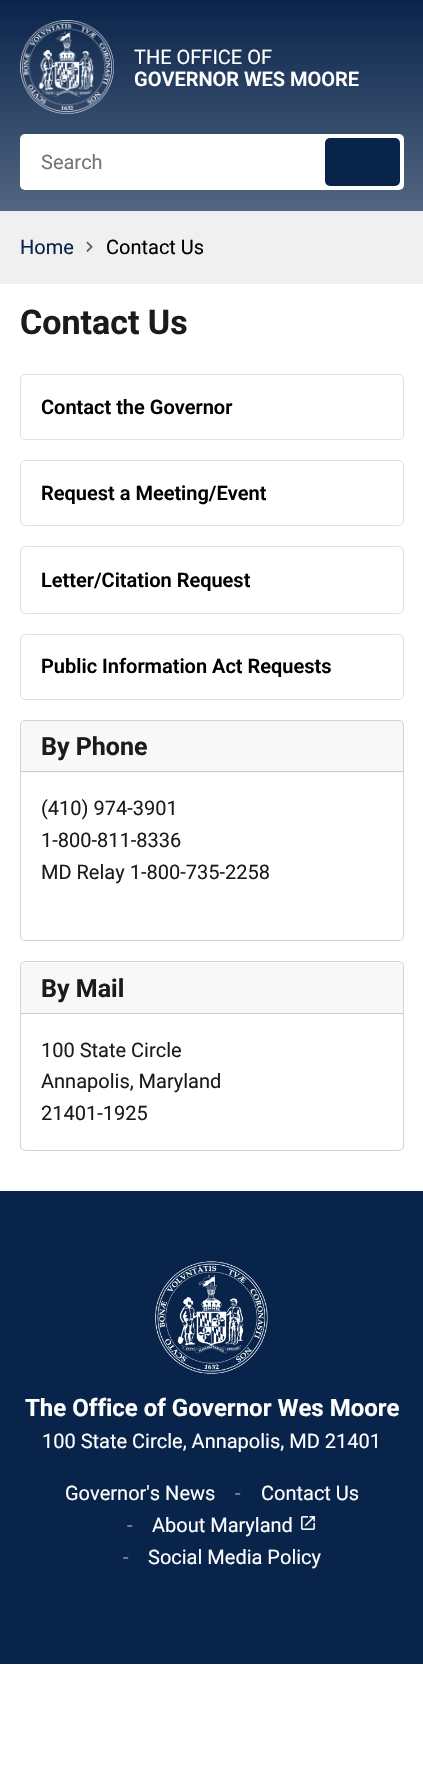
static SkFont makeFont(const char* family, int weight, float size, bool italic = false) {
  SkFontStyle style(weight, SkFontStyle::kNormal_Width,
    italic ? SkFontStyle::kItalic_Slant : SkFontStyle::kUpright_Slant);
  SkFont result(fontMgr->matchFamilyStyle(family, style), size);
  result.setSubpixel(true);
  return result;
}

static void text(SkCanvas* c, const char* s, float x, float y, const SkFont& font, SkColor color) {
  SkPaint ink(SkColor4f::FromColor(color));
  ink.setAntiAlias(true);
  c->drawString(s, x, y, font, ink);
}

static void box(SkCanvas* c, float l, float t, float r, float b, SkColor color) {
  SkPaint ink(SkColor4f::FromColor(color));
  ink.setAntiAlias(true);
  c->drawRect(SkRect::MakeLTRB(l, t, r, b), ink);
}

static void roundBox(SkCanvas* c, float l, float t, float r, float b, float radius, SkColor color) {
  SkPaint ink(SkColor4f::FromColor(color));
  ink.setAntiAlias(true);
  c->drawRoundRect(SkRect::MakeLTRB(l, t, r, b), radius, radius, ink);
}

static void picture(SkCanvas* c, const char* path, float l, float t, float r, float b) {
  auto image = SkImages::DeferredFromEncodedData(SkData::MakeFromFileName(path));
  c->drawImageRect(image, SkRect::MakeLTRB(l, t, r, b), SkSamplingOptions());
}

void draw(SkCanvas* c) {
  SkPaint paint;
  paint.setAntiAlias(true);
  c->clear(0xffffffff);
  {
    const SkColor colors[] = {0xff09244b, 0xff536681};
    const float stops[] = {0, 1};
    const SkPoint ends[] = {{212, 0}, {212, 211}};
    paint.setShader(SkGradientShader::MakeLinear(ends, colors, stops, 2, SkTileMode::kClamp));
    paint.setAlpha(255);
  }
  c->drawRect(SkRect::MakeLTRB(0, 0, 423, 211), paint);
  picture(c, "img_01.png", 20, 20, 114, 114);
  SkFont face1 = makeFont("Roboto", 400, 20);
  text(c, "THE OFFICE OF", 134, 64, face1, 0xffffffff);
  SkFont face2 = makeFont("Roboto", 600, 20);
  text(c, "GOVERNOR WES MOORE", 134, 86, face2, 0xffffffff);
  roundBox(c, 20, 134, 404, 190, 5, 0xffffffff);
  text(c, "Search", 41, 169, face1, 0xff757575);
  roundBox(c, 325, 138, 400, 186, 5, 0xff09244b);
  box(c, 0, 211, 423, 284, 0xfff0f0f0);
  text(c, "Home", 20, 254, face1, 0xff09244b);
  picture(c, "img_02.png", 86, 241, 93, 252);
  text(c, "Contact Us", 106, 254, face1, 0xff000000);
  SkFont face3 = makeFont("Roboto", 700, 34);
  text(c, "Contact Us", 20, 334, face3, 0xff1b1b1b);
  paint.setStyle(SkPaint::kStroke_Style);
  paint.setStrokeWidth(1);
  paint.setShader(nullptr);
  paint.setColor(0xffdfe1e2);
  c->drawRoundRect(SkRect::MakeLTRB(20.5f, 374.5f, 403.5f, 439.5f), 4.5f, 4.5f, paint);
  text(c, "Contact the Governor", 41, 414, face2, 0xff000000);
  c->drawRoundRect(SkRect::MakeLTRB(20.5f, 460.5f, 403.5f, 525.5f), 4.5f, 4.5f, paint);
  text(c, "Request a Meeting/Event", 41, 500, face2, 0xff000000);
  c->drawRoundRect(SkRect::MakeLTRB(20.5f, 546.5f, 403.5f, 613.5f), 4.5f, 4.5f, paint);
  text(c, "Letter/Citation Request", 41, 587, face2, 0xff000000);
  c->drawRoundRect(SkRect::MakeLTRB(20.5f, 634.5f, 403.5f, 699.5f), 4.5f, 4.5f, paint);
  text(c, "Public Information Act Requests", 41, 673, face2, 0xff000000);
  paint.setColor(0xffd2d2d2);
  c->drawRoundRect(SkRect::MakeLTRB(20.5f, 720.5f, 403.5f, 940.5f), 4.5f, 4.5f, paint);
  box(c, 21, 721, 403, 773, 0x081b1b1b);
  box(c, 21, 771, 403, 772, 0xffcccccc);
  SkFont face4 = makeFont("Roboto", 700, 25);
  text(c, "By Phone", 41, 755, face4, 0xff1b1b1b);
  text(c, "(410) 974-3901", 41, 815, face1, 0xff1b1b1b);
  text(c, "1-800-811-8336", 41, 847, face1, 0xff1b1b1b);
  text(c, "MD Relay 1-800-735-2258", 41, 879, face1, 0xff1b1b1b);
  c->drawRoundRect(SkRect::MakeLTRB(20.5f, 961.5f, 403.5f, 1150.5f), 4.5f, 4.5f, paint);
  paint.setStyle(SkPaint::kFill_Style);
  paint.setColor(0xfff8f8f8);
  c->drawPath(SkPathBuilder().moveTo(25, 963).lineTo(399, 963).cubicTo(401, 963, 403, 965, 403, 967).lineTo(403, 1014).lineTo(21, 1014).lineTo(21, 967).cubicTo(21, 965, 23, 963, 25, 963).close().detach(), paint);
  box(c, 21, 1013, 403, 1014, 0xffcccccc);
  text(c, "By Mail", 41, 997, face4, 0xff1b1b1b);
  text(c, "100 State Circle", 41, 1057, face1, 0xff1b1b1b);
  text(c, "Annapolis, Maryland", 41, 1088, face1, 0xff1b1b1b);
  text(c, "21401-1925", 41, 1120, face1, 0xff1b1b1b);
  box(c, 0, 1191, 423, 1664, 0xff09244b);
  picture(c, "img_03.png", 155, 1261, 268, 1374);
  SkFont face5 = makeFont("Roboto", 700, 24);
  text(c, "The Office of Governor Wes Moore", 25, 1416, face5, 0xffffffff);
  text(c, "100 State Circle, Annapolis, MD 21401", 42, 1448, face1, 0xffffffff);
  text(c, "Governor's News", 65, 1500, face1, 0xffffffff);
  text(c, "-", 235, 1500, face1, 0xff8492a5);
  text(c, "Contact Us", 261, 1500, face1, 0xffffffff);
  text(c, "-", 127, 1532, face1, 0xff8492a5);
  text(c, "About Maryland", 152, 1532, face1, 0xffffffff);
  picture(c, "img_04.png", 301, 1516, 315, 1530);
  text(c, "-", 123, 1564, face1, 0xff8492a5);
  text(c, "Social Media Policy", 148, 1564, face1, 0xffffffff);
}
